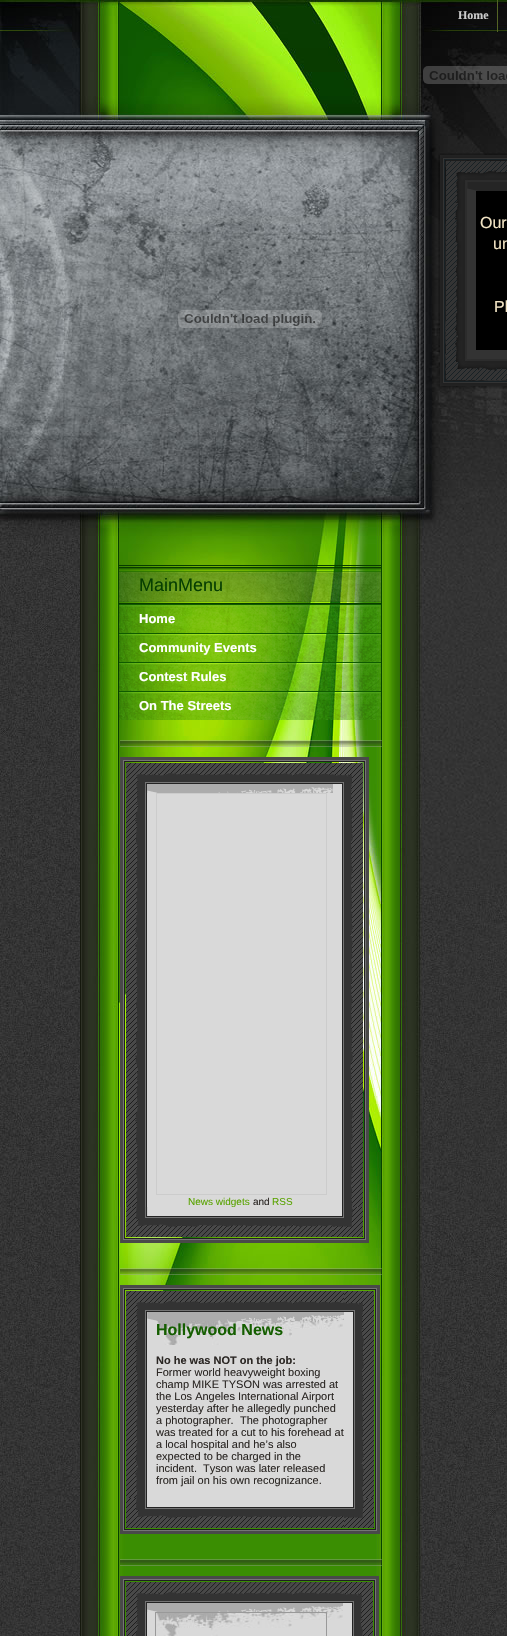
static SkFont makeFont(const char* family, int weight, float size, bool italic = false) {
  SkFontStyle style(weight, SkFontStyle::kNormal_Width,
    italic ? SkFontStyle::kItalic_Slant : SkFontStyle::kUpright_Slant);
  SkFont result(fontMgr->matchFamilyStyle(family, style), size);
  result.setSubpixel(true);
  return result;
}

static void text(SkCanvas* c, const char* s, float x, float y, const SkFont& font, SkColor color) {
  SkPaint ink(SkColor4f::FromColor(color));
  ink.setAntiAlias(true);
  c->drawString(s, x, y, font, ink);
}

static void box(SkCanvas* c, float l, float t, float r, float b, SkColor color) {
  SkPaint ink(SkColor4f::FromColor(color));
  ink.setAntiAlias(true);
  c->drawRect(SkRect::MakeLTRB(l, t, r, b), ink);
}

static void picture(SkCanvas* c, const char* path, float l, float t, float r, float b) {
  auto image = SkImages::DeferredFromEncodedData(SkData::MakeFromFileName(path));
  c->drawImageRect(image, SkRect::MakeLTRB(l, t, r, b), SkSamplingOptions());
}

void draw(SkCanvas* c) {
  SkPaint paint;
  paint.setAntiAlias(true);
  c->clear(0xffffffff);
  picture(c, "img_01.png", 0, 1400, 507, 1636);
  picture(c, "img_02.png", 0, 0, 507, 1400);
  box(c, 497, 0, 498, 32, 0xff546425);
  SkFont face1 = makeFont("Liberation Serif", 700, 12);
  text(c, "Home", 458, 19, face1, 0xffcccccc);
  picture(c, "img_03.png", 423, 66, 507, 84);
  picture(c, "img_04.png", 178, 310, 322, 328);
  picture(c, "img_05.png", 438, 153, 507, 191);
  picture(c, "img_06.png", 438, 191, 476, 350);
  box(c, 476, 191, 507, 350, 0xff000000);
  SkFont face2 = makeFont("Liberation Sans", 400, 16);
  text(c, "Our", 480, 228, face2, 0xfff2e4c4);
  text(c, "un", 493, 249, face2, 0xfff2e4c4);
  text(c, "Pl", 494, 312, face2, 0xfff2e4c4);
  picture(c, "img_07.png", 437, 350, 507, 389);
  picture(c, "img_08.png", 119, 565, 381, 606);
  SkFont face3 = makeFont("Liberation Sans", 400, 18);
  text(c, "MainMenu", 139, 591, face3, 0xff063e01);
  picture(c, "img_09.png", 119, 604, 381, 633);
  SkFont face4 = makeFont("Liberation Sans", 700, 13);
  text(c, "Home", 139, 623, face4, 0xffffffff);
  picture(c, "img_10.png", 119, 633, 381, 662);
  text(c, "Community Events", 139, 652, face4, 0xffffffff);
  picture(c, "img_11.png", 119, 662, 381, 691);
  text(c, "Contest Rules", 139, 681, face4, 0xffffffff);
  picture(c, "img_12.png", 119, 691, 381, 720);
  text(c, "On The Streets", 139, 710, face4, 0xffffffff);
  picture(c, "img_13.png", 120, 740, 382, 747);
  picture(c, "img_14.png", 120, 757, 333, 793);
  picture(c, "img_15.png", 333, 757, 369, 793);
  picture(c, "img_16.png", 120, 793, 156, 1207);
  box(c, 156, 793, 333, 1207, 0xffd9d9d9);
  paint.setStyle(SkPaint::kStroke_Style);
  paint.setStrokeWidth(1);
  paint.setColor(0xffcccccc);
  c->drawRect(SkRect::MakeLTRB(156.5f, 793.5f, 326.5f, 1194.5f), paint);
  picture(c, "img_18.png", 120, 1207, 333, 1243);
  SkFont face5 = makeFont("Liberation Sans", 400, 10);
  text(c, "News widgets", 188, 1205, face5, 0xff59a300);
  text(c, "and", 253, 1205, face5, 0xff2b2724);
  text(c, "RSS", 272, 1205, face5, 0xff59a300);
  picture(c, "img_17.png", 333, 793, 369, 1207);
  picture(c, "img_19.png", 333, 1207, 369, 1243);
  picture(c, "img_20.png", 120, 1268, 382, 1275);
  picture(c, "img_21.png", 120, 1285, 344, 1321);
  picture(c, "img_22.png", 344, 1285, 380, 1321);
  picture(c, "img_23.png", 120, 1321, 156, 1498);
  box(c, 156, 1321, 344, 1498, 0xffd9d9d9);
  picture(c, "img_24.png", 157, 1321, 343, 1345);
  SkFont face6 = makeFont("Liberation Sans", 700, 16);
  text(c, "Hollywood News", 156, 1335, face6, 0xff155e00);
  SkFont face7 = makeFont("Liberation Sans", 700, 11);
  text(c, "No he was NOT on the job:", 156, 1364, face7, 0xff2b2724);
  SkFont face8 = makeFont("Liberation Sans", 400, 11);
  text(c, "Former world heavyweight boxing", 156, 1376, face8, 0xff2b2724);
  text(c, "champ MIKE TYSON was arrested at", 156, 1388, face8, 0xff2b2724);
  text(c, "the Los Angeles International Airport", 156, 1400, face8, 0xff2b2724);
  text(c, "yesterday after he allegedly punched", 156, 1412, face8, 0xff2b2724);
  text(c, "a photographer.", 156, 1424, face8, 0xff2b2724);
  text(c, "The photographer", 240, 1424, face8, 0xff2b2724);
  text(c, "was treated for a cut to his forehead at", 156, 1436, face8, 0xff2b2724);
  text(c, "a local hospital and he’s also", 156, 1448, face8, 0xff2b2724);
  text(c, "expected to be charged in the", 156, 1460, face8, 0xff2b2724);
  text(c, "incident.", 156, 1472, face8, 0xff2b2724);
  text(c, "Tyson was later released", 203, 1472, face8, 0xff2b2724);
  text(c, "from jail on his own recognizance.", 156, 1484, face8, 0xff2b2724);
  picture(c, "img_25.png", 344, 1321, 380, 1498);
  picture(c, "img_26.png", 120, 1498, 344, 1534);
  picture(c, "img_27.png", 344, 1498, 380, 1534);
  picture(c, "img_28.png", 120, 1559, 382, 1566);
  picture(c, "img_29.png", 120, 1576, 343, 1612);
  picture(c, "img_30.png", 343, 1576, 379, 1612);
  picture(c, "img_31.png", 120, 1612, 155, 1636);
  picture(c, "img_32.png", 156, 1612, 343, 1636);
  paint.setColor(0xff999999);
  c->drawRect(SkRect::MakeLTRB(155.5f, 1612.5f, 326.5f, 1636.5f), paint);
  picture(c, "img_33.png", 343, 1612, 379, 1636);
}
